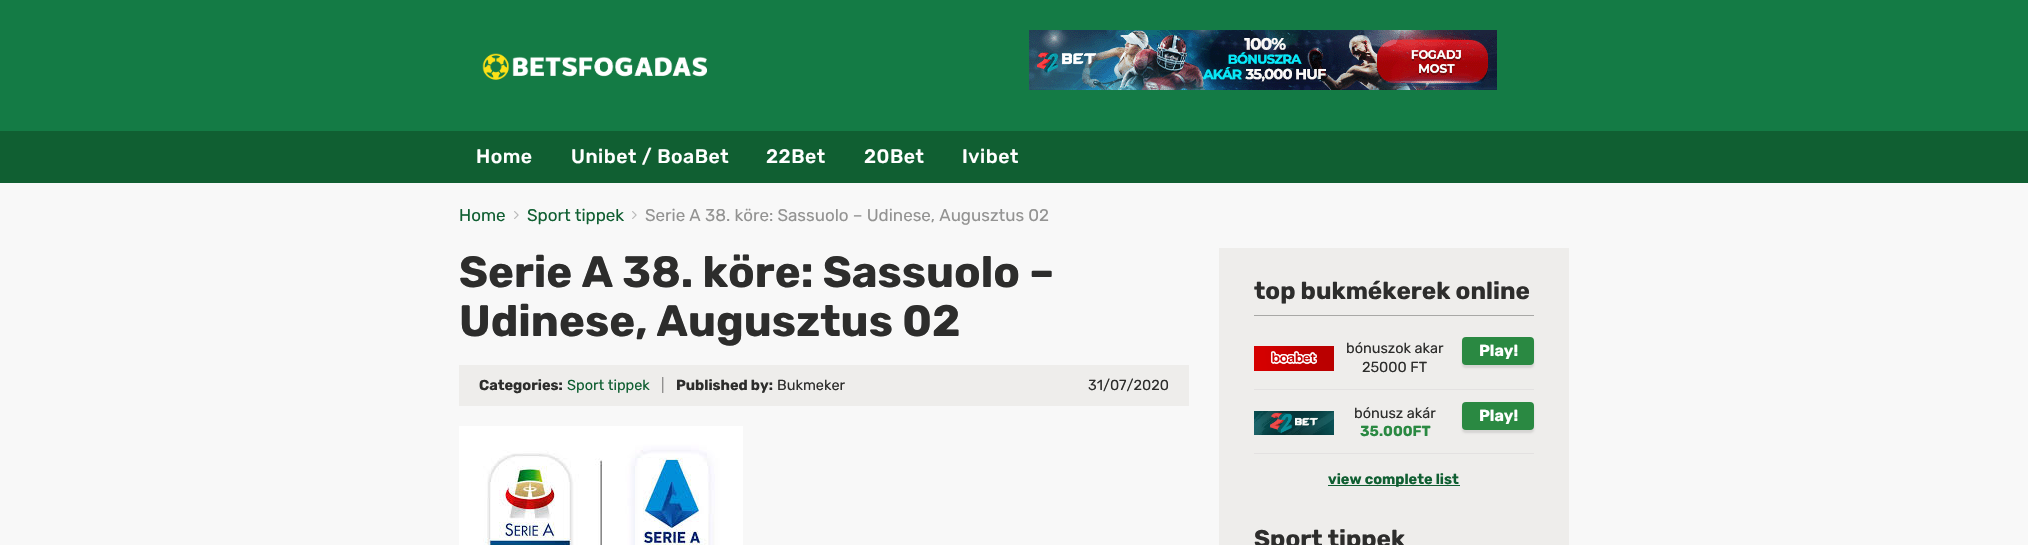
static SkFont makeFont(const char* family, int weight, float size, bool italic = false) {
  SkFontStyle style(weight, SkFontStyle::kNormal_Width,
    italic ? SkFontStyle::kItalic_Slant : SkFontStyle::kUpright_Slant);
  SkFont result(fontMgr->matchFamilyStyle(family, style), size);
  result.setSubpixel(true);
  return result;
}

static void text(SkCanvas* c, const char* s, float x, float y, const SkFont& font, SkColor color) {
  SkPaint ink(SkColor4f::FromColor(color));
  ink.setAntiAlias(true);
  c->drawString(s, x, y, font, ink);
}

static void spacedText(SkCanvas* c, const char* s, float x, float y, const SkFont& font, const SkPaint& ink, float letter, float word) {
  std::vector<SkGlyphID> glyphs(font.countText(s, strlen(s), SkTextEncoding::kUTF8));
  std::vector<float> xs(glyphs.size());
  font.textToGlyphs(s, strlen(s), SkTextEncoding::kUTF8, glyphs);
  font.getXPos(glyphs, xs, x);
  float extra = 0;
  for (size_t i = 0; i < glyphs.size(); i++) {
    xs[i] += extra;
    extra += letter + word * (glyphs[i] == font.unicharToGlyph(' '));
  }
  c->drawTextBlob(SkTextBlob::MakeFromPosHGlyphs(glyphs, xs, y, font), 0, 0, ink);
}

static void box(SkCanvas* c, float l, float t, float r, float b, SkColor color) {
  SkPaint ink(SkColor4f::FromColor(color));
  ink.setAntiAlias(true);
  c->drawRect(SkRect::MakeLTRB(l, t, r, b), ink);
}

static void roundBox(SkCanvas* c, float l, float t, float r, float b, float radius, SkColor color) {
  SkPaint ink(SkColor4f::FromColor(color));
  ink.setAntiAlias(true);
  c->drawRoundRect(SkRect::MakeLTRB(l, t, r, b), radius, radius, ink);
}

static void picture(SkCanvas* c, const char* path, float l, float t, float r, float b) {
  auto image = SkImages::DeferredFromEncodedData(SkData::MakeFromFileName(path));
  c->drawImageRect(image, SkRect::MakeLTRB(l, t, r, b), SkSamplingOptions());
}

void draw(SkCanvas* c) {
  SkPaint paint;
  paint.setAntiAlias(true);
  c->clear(0xfff8f8f8);
  box(c, 0, 0, 2028, 131, 0xff147b45);
  picture(c, "img_01.png", 482, 53, 707, 80);
  picture(c, "img_02.png", 1029, 30, 1497, 90);
  box(c, 0, 131, 2028, 183, 0xff105f32);
  SkFont face1 = makeFont("Rubik", 500, 19.5f);
  paint.setColor(0xffffffff);
  spacedText(c, "Home", 476, 163, face1, paint, 0.5f, 0);
  spacedText(c, "Unibet / BoaBet", 571, 163, face1, paint, 0.5f, 0);
  spacedText(c, "22Bet", 766, 163, face1, paint, 0.5f, 0);
  spacedText(c, "20Bet", 864, 163, face1, paint, 0.5f, 0);
  spacedText(c, "Ivibet", 962, 163, face1, paint, 0.5f, 0);
  SkFont face2 = makeFont("Rubik", 400, 17);
  text(c, "Home", 459, 221, face2, 0xff105f32);
  picture(c, "img_03.png", 514, 211, 519, 219);
  text(c, "Sport tippek", 527, 221, face2, 0xff105f32);
  picture(c, "img_03.png", 632, 211, 637, 219);
  text(c, "Serie A 38. köre: Sassuolo – Udinese, Augusztus 02", 645, 221, face2, 0xff939392);
  SkFont face3 = makeFont("Rubik", 700, 43.75f);
  text(c, "Serie A 38. köre: Sassuolo –", 459, 287, face3, 0xff2d2d2c);
  text(c, "Udinese, Augusztus 02", 459, 336, face3, 0xff2d2d2c);
  box(c, 459, 365, 1189, 406, 0xffeeedeb);
  SkFont face4 = makeFont("Rubik", 700, 14.5f);
  text(c, "Categories:", 479, 390, face4, 0xff2d2d2c);
  SkFont face5 = makeFont("Rubik", 400, 14.5f);
  text(c, "Sport tippek", 567, 390, face5, 0xff105f32);
  text(c, "|", 661, 390, face5, 0xff8e8d8c);
  text(c, "Published by:", 676, 390, face4, 0xff2d2d2c);
  text(c, "Bukmeker", 777, 390, face5, 0xff2d2d2c);
  text(c, "31/07/2020", 1088, 390, face5, 0xff2d2d2c);
  picture(c, "img_04.png", 459, 426, 743, 545);
  box(c, 1219, 248, 1569, 545, 0xffeeedeb);
  box(c, 1254, 315, 1534, 316, 0xffa8a8a6);
  SkFont face6 = makeFont("Rubik", 700, 24.25f);
  text(c, "top bukmékerek online", 1254, 299, face6, 0xff2d2d2c);
  box(c, 1254, 389, 1534, 390, 0xffe3e1e1);
  picture(c, "img_05.png", 1254, 346, 1334, 371);
  text(c, "bónuszok akar", 1346, 353, face5, 0xff2d2d2c);
  text(c, "25000 FT", 1362, 372, face5, 0xff2d2d2c);
  paint.setColor(0x1a000000);
  paint.setMaskFilter(SkMaskFilter::MakeBlur(kNormal_SkBlurStyle, 1));
  c->drawRoundRect(SkRect::MakeLTRB(1462, 340, 1534, 368), 4, 4, paint);
  paint.setMaskFilter(nullptr);
  roundBox(c, 1462, 337, 1534, 365, 4, 0xff2a8942);
  SkFont face7 = makeFont("Rubik", 700, 16);
  text(c, "Play!", 1479, 356, face7, 0xffffffff);
  box(c, 1254, 453, 1534, 454, 0xffe3e1e1);
  picture(c, "img_06.png", 1254, 411, 1334, 435);
  text(c, "bónusz akár", 1354, 418, face5, 0xff2d2d2c);
  text(c, "35.000FT", 1360, 436, face4, 0xff2a8942);
  paint.setMaskFilter(SkMaskFilter::MakeBlur(kNormal_SkBlurStyle, 1));
  c->drawRoundRect(SkRect::MakeLTRB(1462, 405, 1534, 433), 4, 4, paint);
  paint.setMaskFilter(nullptr);
  roundBox(c, 1462, 402, 1534, 430, 4, 0xff2a8942);
  text(c, "Play!", 1479, 421, face7, 0xffffffff);
  box(c, 1328, 485, 1460, 486, 0xff105f32);
  text(c, "view complete list", 1328, 484, face4, 0xff105f32);
  text(c, "Sport tippek", 1254, 547, face6, 0xff2d2d2c);
}
